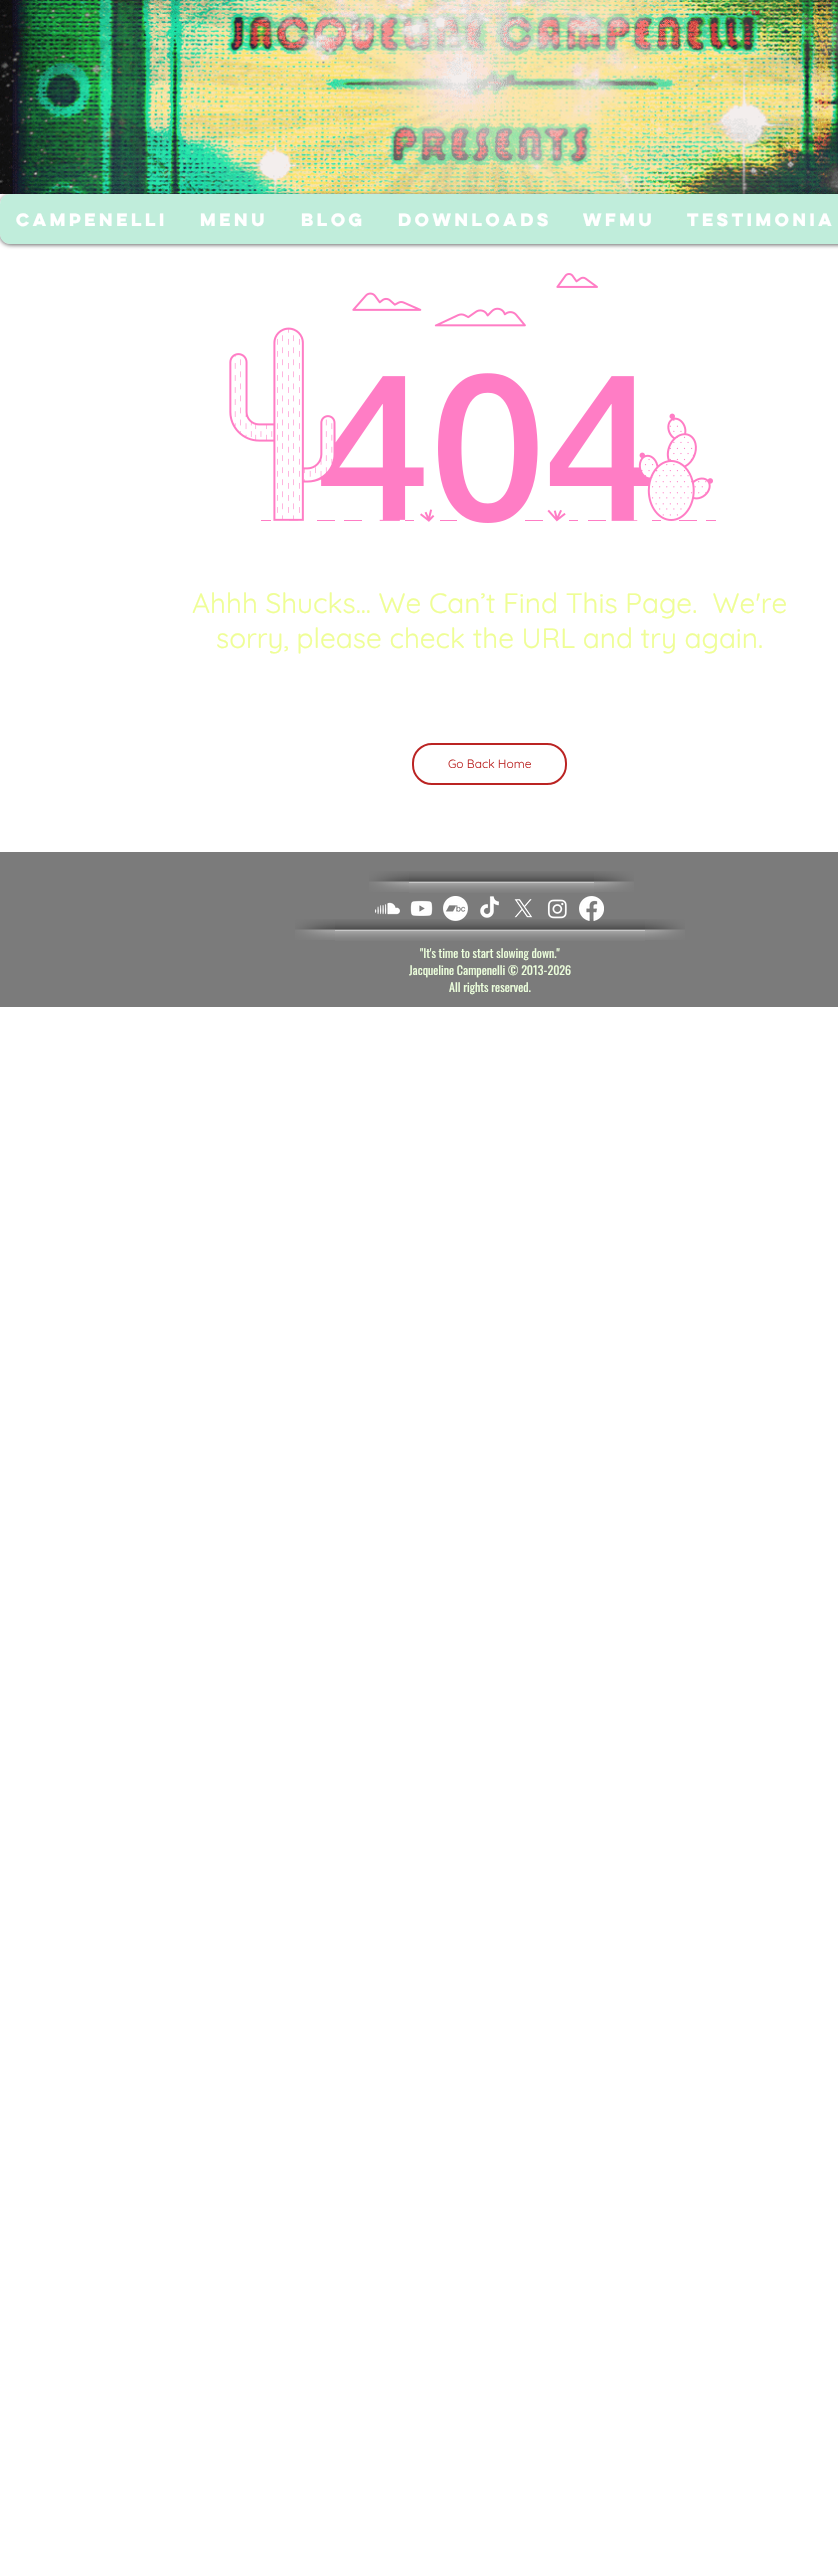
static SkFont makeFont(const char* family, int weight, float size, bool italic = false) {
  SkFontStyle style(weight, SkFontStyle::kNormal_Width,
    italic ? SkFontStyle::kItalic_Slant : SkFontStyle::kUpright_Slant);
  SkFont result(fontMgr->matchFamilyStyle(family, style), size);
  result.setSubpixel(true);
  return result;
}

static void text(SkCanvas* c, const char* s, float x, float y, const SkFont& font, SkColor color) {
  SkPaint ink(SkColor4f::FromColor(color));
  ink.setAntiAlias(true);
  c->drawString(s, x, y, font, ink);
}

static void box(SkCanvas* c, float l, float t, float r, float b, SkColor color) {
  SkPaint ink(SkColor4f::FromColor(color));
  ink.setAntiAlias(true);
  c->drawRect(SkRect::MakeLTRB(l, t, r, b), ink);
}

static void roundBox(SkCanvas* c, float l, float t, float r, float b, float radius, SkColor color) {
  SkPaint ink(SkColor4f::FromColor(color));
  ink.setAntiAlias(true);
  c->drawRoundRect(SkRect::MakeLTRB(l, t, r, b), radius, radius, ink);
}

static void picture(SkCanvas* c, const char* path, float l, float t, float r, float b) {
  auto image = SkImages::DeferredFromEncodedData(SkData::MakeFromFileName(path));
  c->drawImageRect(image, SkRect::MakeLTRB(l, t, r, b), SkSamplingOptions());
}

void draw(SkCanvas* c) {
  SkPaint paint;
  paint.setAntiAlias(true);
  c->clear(0xffffffff);
  picture(c, "img_01.png", 0, 0, 838, 194);
  c->save();
  c->clipPath(SkPathBuilder(SkPathFillType::kEvenOdd).moveTo(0, 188).lineTo(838, 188).lineTo(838, 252).lineTo(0, 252).close().moveTo(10, 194).lineTo(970, 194).cubicTo(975.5f, 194, 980, 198.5f, 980, 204).lineTo(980, 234).cubicTo(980, 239.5f, 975.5f, 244, 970, 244).lineTo(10, 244).cubicTo(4.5f, 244, 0, 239.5f, 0, 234).lineTo(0, 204).cubicTo(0, 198.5f, 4.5f, 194, 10, 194).close().detach(), true);
  paint.setColor(0x99000000);
  paint.setMaskFilter(SkMaskFilter::MakeBlur(kNormal_SkBlurStyle, 2));
  c->drawRoundRect(SkRect::MakeLTRB(0, 195, 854, 245), 10, 10, paint);
  paint.setMaskFilter(nullptr);
  c->restore();
  roundBox(c, 0, 194, 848, 244, 10, 0x4f35c68b);
  SkFont face1 = makeFont("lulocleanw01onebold", 700, 16);
  text(c, "Campenelli", 16, 226, face1, 0xffffffff);
  text(c, "Menu", 200, 226, face1, 0xffffffff);
  text(c, "Blog", 301, 226, face1, 0xffffffff);
  text(c, "Downloads", 398, 226, face1, 0xffffffff);
  text(c, "WFMU", 583, 226, face1, 0xffffffff);
  text(c, "Testimonia", 687, 226, face1, 0xffffffff);
  picture(c, "img_02.png", 229, 273, 716, 523);
  SkFont face2 = makeFont("Quicksand", 400, 28);
  text(c, "Ahhh Shucks... We Can’t Find This Page.  We're", 192, 613, face2, 0xffeffe95);
  text(c, "sorry, please check the URL and try again.", 216, 648, face2, 0xffeffe95);
  paint.setStyle(SkPaint::kStroke_Style);
  paint.setStrokeWidth(2);
  paint.setColor(0xffbb2423);
  c->drawRoundRect(SkRect::MakeLTRB(413, 744, 566, 784), 19, 19, paint);
  SkFont face3 = makeFont("Quicksand", 400, 12);
  text(c, "Go Back Home", 448, 768, face3, 0xffbb2423);
  box(c, 0, 852, 838, 1007, 0xff7b7b7b);
  picture(c, "img_03.png", 409, 871, 594, 893);
  picture(c, "img_04.png", 369, 871, 409, 892);
  picture(c, "img_05.png", 594, 871, 634, 892);
  picture(c, "img_06.png", 375, 902, 400, 915);
  picture(c, "img_07.png", 410, 900, 433, 916);
  picture(c, "img_13.png", 335, 919, 645, 941);
  picture(c, "img_08.png", 443, 896, 468, 921);
  picture(c, "img_09.png", 480, 896, 499, 918);
  picture(c, "img_10.png", 514, 899, 533, 918);
  picture(c, "img_11.png", 547, 899, 567, 919);
  picture(c, "img_12.png", 579, 896, 604, 921);
  picture(c, "img_04.png", 295, 919, 335, 940);
  picture(c, "img_05.png", 645, 919, 685, 940);
  SkFont face4 = makeFont("Oswald", 400, 12);
  text(c, "\"It's time to start slowing down.\"", 420, 958, face4, 0xffecffdc);
  text(c, "Jacqueline Campenelli © 2013-2026", 409, 975, face4, 0xffecffdc);
  text(c, "All rights reserved.", 449, 992, face4, 0xffecffdc);
}
